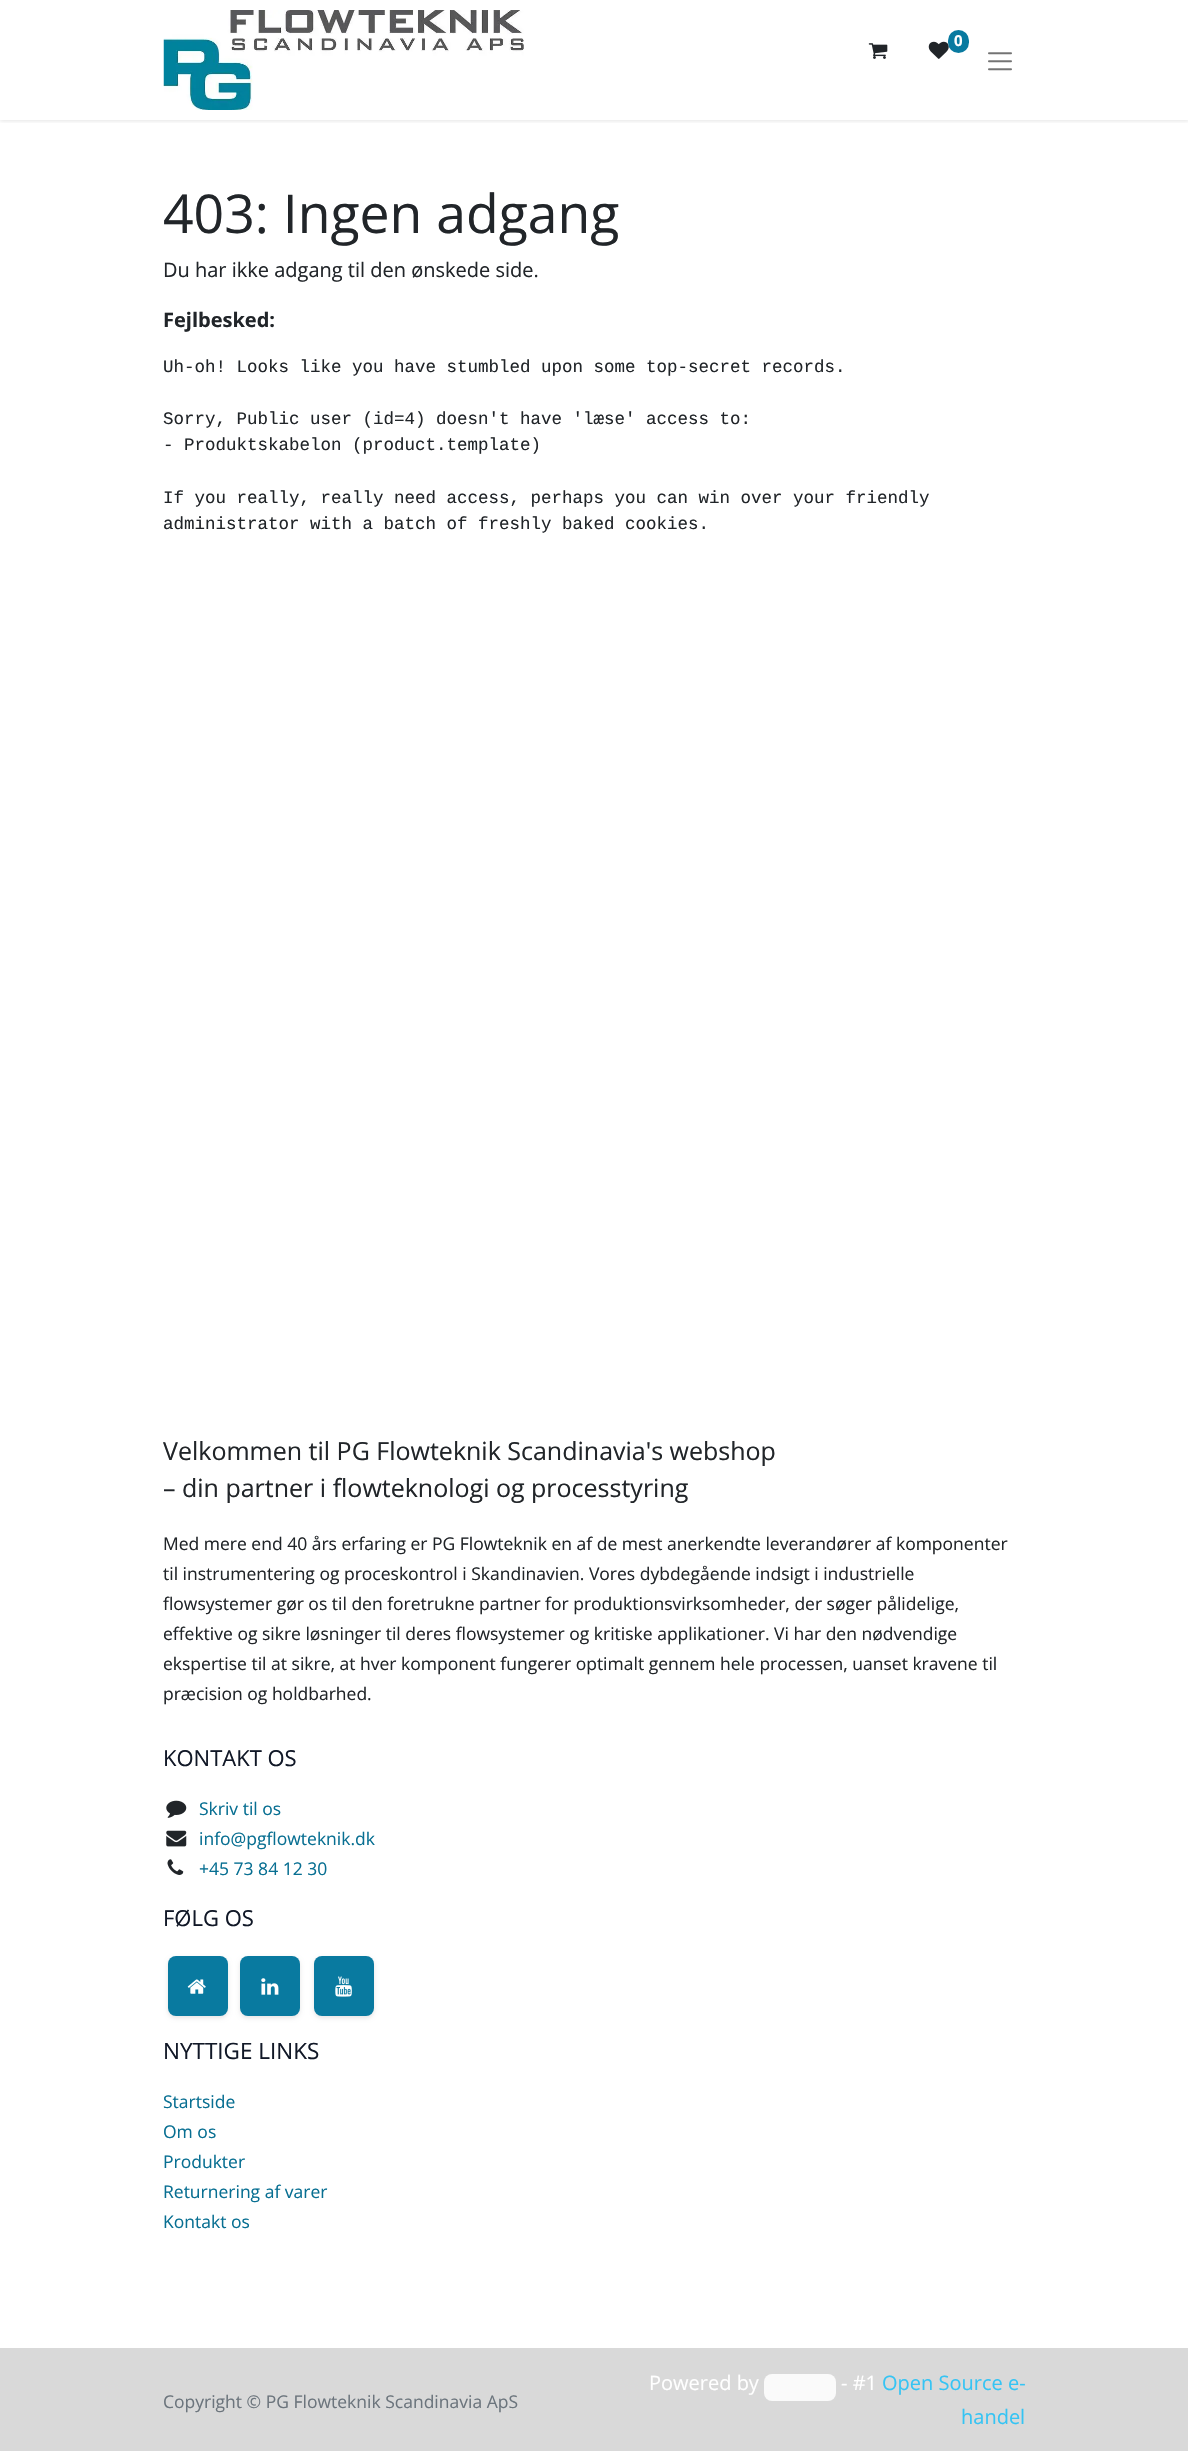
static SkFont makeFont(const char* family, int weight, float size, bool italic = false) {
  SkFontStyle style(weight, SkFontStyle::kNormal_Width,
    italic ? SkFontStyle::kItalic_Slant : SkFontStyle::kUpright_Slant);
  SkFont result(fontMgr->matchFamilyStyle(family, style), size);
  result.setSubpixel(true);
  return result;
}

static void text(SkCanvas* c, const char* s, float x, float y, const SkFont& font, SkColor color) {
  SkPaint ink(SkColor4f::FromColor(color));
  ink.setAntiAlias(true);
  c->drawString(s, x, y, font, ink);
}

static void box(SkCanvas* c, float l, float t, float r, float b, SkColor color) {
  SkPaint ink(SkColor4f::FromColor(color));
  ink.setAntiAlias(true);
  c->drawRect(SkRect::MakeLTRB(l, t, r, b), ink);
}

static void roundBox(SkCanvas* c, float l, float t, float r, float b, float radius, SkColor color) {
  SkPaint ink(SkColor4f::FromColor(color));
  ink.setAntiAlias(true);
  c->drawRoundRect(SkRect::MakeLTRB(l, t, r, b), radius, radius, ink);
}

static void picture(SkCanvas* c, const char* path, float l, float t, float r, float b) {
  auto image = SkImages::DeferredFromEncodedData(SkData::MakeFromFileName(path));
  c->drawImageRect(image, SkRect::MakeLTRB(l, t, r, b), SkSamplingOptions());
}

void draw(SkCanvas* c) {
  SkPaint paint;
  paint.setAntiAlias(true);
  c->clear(0xffffffff);
  c->save();
  c->clipRect(SkRect::MakeLTRB(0, 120, 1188, 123));
  paint.setColor(0x1a000000);
  paint.setMaskFilter(SkMaskFilter::MakeBlur(kNormal_SkBlurStyle, 2));
  c->drawRect(SkRect::MakeLTRB(0, 1, 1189, 121), paint);
  paint.setMaskFilter(nullptr);
  c->restore();
  picture(c, "img_01.png", 163, 10, 524, 110);
  picture(c, "img_02.png", 928, 41, 949, 59);
  roundBox(c, 948, 30, 969, 53, 10.5f, 0xff097aa0);
  SkFont face1 = makeFont("Open Sans", 700, 15);
  text(c, "0", 954, 46, face1, 0xffffffff);
  picture(c, "img_03.png", 868, 43, 888, 59);
  picture(c, "img_04.png", 988, 52, 1012, 71);
  SkFont face2 = makeFont("Open Sans", 400, 53.5f);
  text(c, "403: Ingen adgang", 163, 233, face2, 0xff212529);
  SkFont face3 = makeFont("Open Sans", 400, 20);
  text(c, "Du har ikke adgang til den ønskede side.", 163, 277, face3, 0xff212529);
  SkFont face4 = makeFont("Open Sans", 700, 20);
  text(c, "Fejlbesked:", 163, 327, face4, 0xff212529);
  SkFont face5 = makeFont("Liberation Mono", 400, 17.5f);
  text(c, "Uh-oh! Looks like you have stumbled upon some top-secret records.", 163, 372, face5, 0xff212529);
  text(c, "Sorry, Public user (id=4) doesn't have 'læse' access to:", 163, 424, face5, 0xff212529);
  text(c, "- Produktskabelon (product.template)", 163, 450, face5, 0xff212529);
  text(c, "If you really, really need access, perhaps you can win over your friendly", 163, 503, face5, 0xff212529);
  text(c, "administrator with a batch of freshly baked cookies.", 163, 529, face5, 0xff212529);
  SkFont face6 = makeFont("Open Sans", 400, 25);
  text(c, "Velkommen til PG Flowteknik Scandinavia's webshop", 163, 1460, face6, 0xff212529);
  text(c, "– din partner i flowteknologi og processtyring", 163, 1497, face6, 0xff212529);
  SkFont face7 = makeFont("Open Sans", 400, 17.5f);
  text(c, "Med mere end 40 års erfaring er PG Flowteknik en af de mest anerkendte leverandører af komponenter", 163, 1550, face7, 0xff212529);
  text(c, "til instrumentering og proceskontrol i Skandinavien. Vores dybdegående indsigt i industrielle", 163, 1580, face7, 0xff212529);
  text(c, "flowsystemer gør os til den foretrukne partner for produktionsvirksomheder, der søger pålidelige,", 163, 1610, face7, 0xff212529);
  text(c, "effektive og sikre løsninger til deres flowsystemer og kritiske applikationer. Vi har den nødvendige", 163, 1640, face7, 0xff212529);
  text(c, "ekspertise til at sikre, at hver komponent fungerer optimalt gennem hele processen, uanset kravene til", 163, 1670, face7, 0xff212529);
  text(c, "præcision og holdbarhed.", 163, 1700, face7, 0xff212529);
  SkFont face8 = makeFont("Open Sans", 400, 22);
  text(c, "KONTAKT OS", 163, 1766, face8, 0xff111827);
  picture(c, "img_05.png", 166, 1800, 187, 1818);
  text(c, "Skriv til os", 199, 1815, face7, 0xff086f92);
  picture(c, "img_06.png", 166, 1830, 187, 1847);
  text(c, "info@pgflowteknik.dk", 199, 1845, face7, 0xff086f92);
  picture(c, "img_07.png", 167, 1859, 184, 1875);
  text(c, "+45 73 84 12 30", 199, 1875, face7, 0xff086f92);
  text(c, "FØLG OS", 163, 1926, face8, 0xff111827);
  paint.setMaskFilter(SkMaskFilter::MakeBlur(kNormal_SkBlurStyle, 2));
  c->drawRoundRect(SkRect::MakeLTRB(168, 1958, 228, 2018), 8, 8, paint);
  paint.setMaskFilter(nullptr);
  roundBox(c, 168, 1956, 228, 2016, 8, 0xff097aa0);
  picture(c, "img_08.png", 187, 1979, 206, 1994);
  paint.setMaskFilter(SkMaskFilter::MakeBlur(kNormal_SkBlurStyle, 2));
  c->drawRoundRect(SkRect::MakeLTRB(240, 1958, 300, 2018), 8, 8, paint);
  paint.setMaskFilter(nullptr);
  roundBox(c, 240, 1956, 300, 2016, 8, 0xff097aa0);
  picture(c, "img_09.png", 261, 1978, 279, 1995);
  paint.setMaskFilter(SkMaskFilter::MakeBlur(kNormal_SkBlurStyle, 2));
  c->drawRoundRect(SkRect::MakeLTRB(314, 1958, 374, 2018), 8, 8, paint);
  paint.setMaskFilter(nullptr);
  roundBox(c, 314, 1956, 374, 2016, 8, 0xff097aa0);
  picture(c, "img_10.png", 335, 1976, 352, 1997);
  SkFont face9 = makeFont("Open Sans", 400, 22.5f);
  text(c, "NYTTIGE LINKS", 163, 2059, face9, 0xff111827);
  text(c, "Startside", 163, 2108, face7, 0xff086f92);
  text(c, "Om os", 163, 2138, face7, 0xff086f92);
  text(c, "Produkter", 163, 2168, face7, 0xff086f92);
  text(c, "Returnering af varer", 163, 2198, face7, 0xff086f92);
  text(c, "Kontakt os", 163, 2228, face7, 0xff086f92);
  box(c, 0, 2348, 1188, 2451, 0xffd9d9d9);
  text(c, "Copyright © PG Flowteknik Scandinavia ApS", 163, 2408, face7, 0xff6c757d);
  text(c, "Powered by", 649, 2390, face3, 0xffffffff);
  roundBox(c, 764, 2374, 836, 2401, 8, 0xfffafafa);
  text(c, "- #1", 841, 2390, face3, 0xffffffff);
  text(c, "Open Source e-", 882, 2390, face3, 0xff35c4f4);
  text(c, "handel", 961, 2424, face3, 0xff35c4f4);
}
